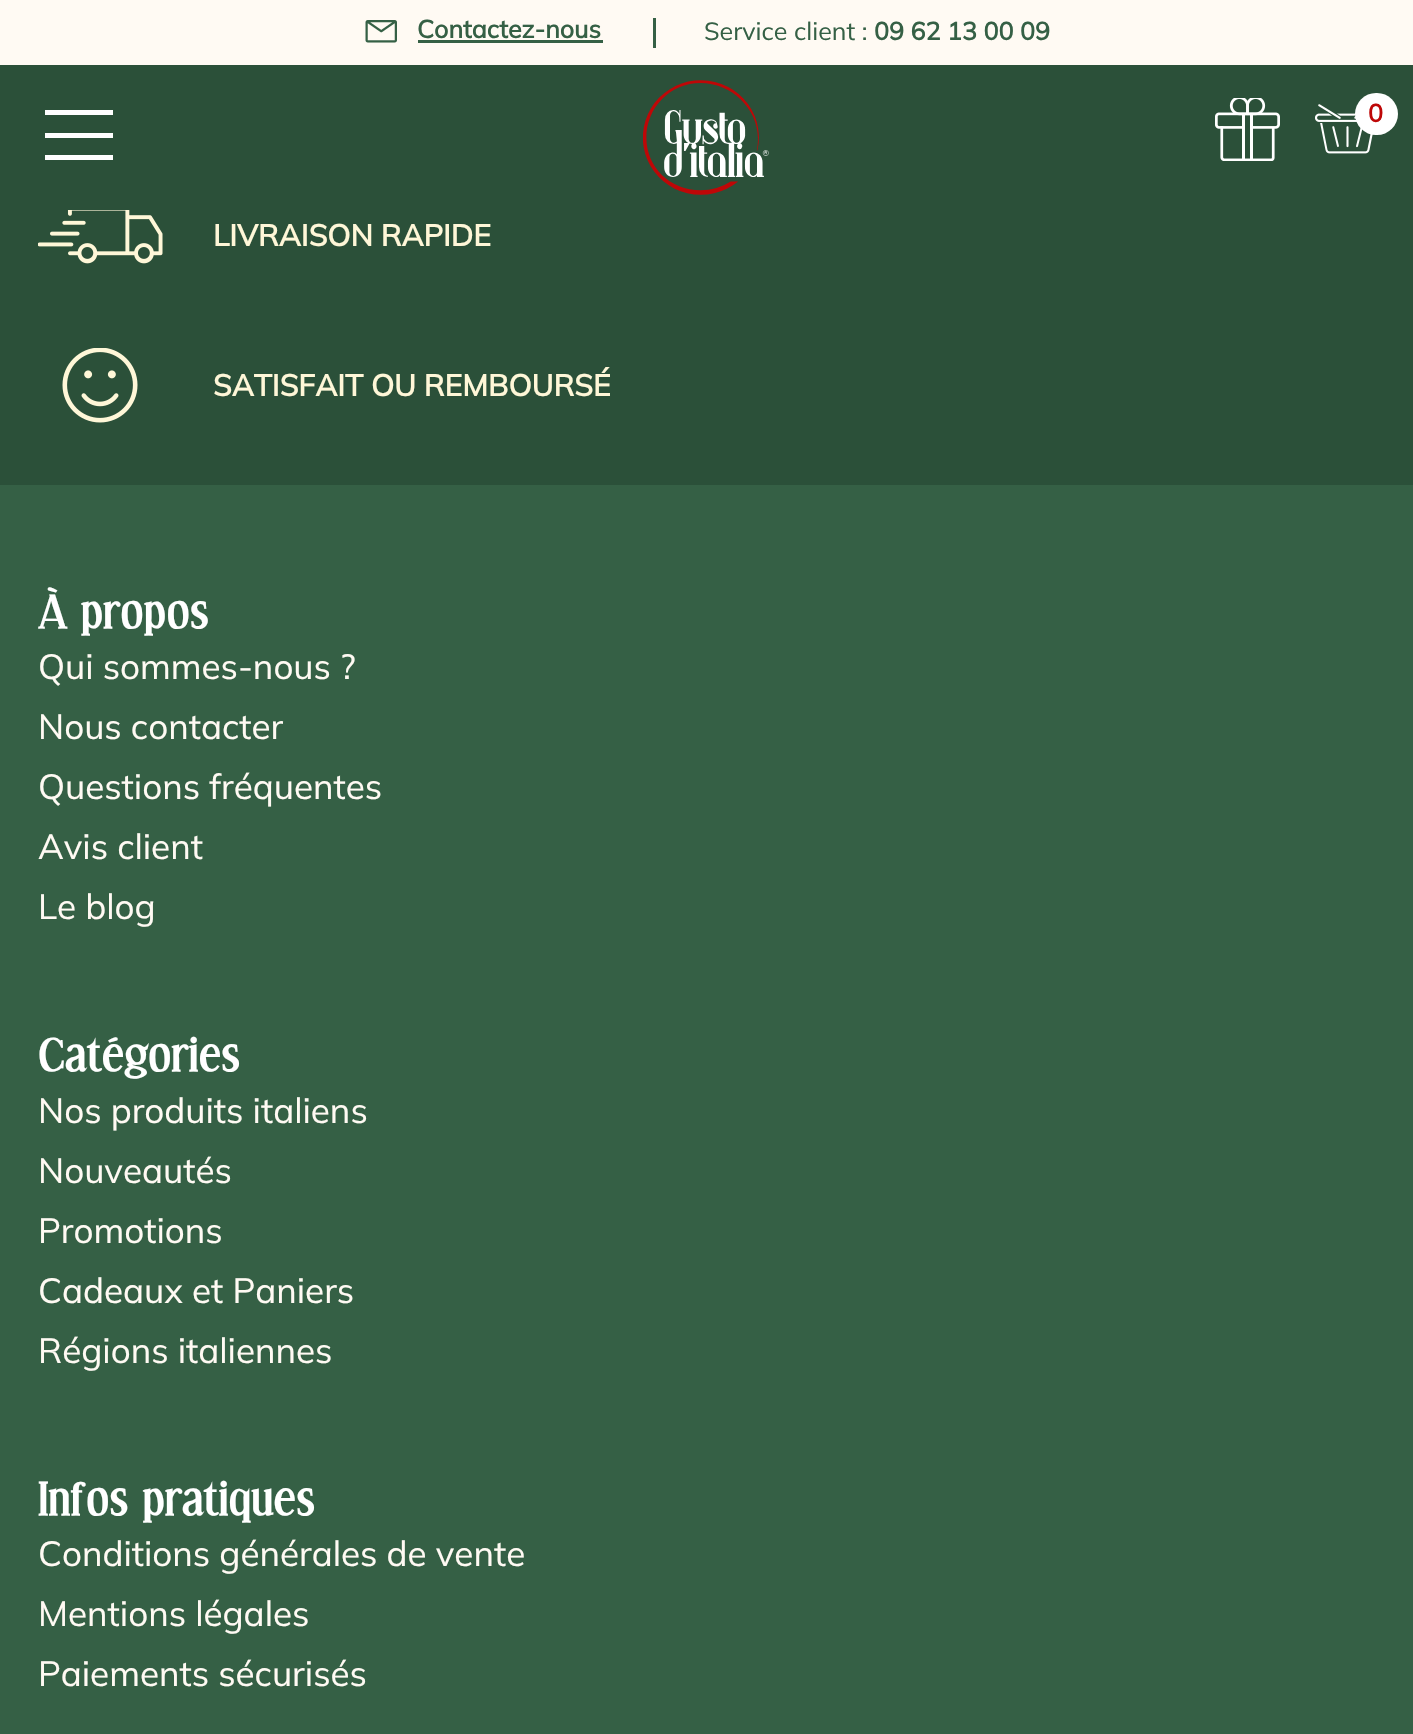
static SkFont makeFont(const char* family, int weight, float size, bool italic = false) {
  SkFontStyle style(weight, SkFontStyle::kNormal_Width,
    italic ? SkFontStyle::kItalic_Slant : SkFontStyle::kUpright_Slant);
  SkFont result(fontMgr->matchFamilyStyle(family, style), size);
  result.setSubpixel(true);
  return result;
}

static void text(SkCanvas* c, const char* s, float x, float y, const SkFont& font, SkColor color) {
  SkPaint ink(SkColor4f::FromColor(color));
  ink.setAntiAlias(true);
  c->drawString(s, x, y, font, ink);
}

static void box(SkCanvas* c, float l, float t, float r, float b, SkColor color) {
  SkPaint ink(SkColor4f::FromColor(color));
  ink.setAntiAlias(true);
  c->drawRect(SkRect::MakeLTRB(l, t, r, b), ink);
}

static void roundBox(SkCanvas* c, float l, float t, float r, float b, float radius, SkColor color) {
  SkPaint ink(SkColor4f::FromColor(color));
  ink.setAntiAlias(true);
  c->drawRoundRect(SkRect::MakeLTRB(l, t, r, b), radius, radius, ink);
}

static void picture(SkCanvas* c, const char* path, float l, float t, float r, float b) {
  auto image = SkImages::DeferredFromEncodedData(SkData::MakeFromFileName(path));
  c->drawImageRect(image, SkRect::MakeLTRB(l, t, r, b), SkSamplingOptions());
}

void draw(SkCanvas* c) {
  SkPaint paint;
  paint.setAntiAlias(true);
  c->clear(0xff2b5039);
  box(c, 0, 0, 1413, 65, 0xfffffaf3);
  picture(c, "img_01.png", 365, 20, 397, 43);
  SkFont face1 = makeFont("Mulish", 700, 25);
  text(c, "Contactez-nous", 417, 38, face1, 0xff356045);
  box(c, 418, 40, 603, 43, 0xff356045);
  box(c, 653, 18, 656, 48, 0xff356045);
  SkFont face2 = makeFont("Mulish", 200, 25);
  text(c, "Service client :", 704, 40, face2, 0xff356045);
  text(c, "09 62 13 00 09", 874, 40, face1, 0xff356045);
  box(c, 45, 133, 113, 138, 0xffffffff);
  box(c, 45, 110, 113, 115, 0xffffffff);
  box(c, 45, 155, 113, 160, 0xffffffff);
  picture(c, "img_02.png", 643, 80, 769, 195);
  picture(c, "img_03.png", 1215, 98, 1280, 161);
  picture(c, "img_04.png", 1315, 104, 1373, 154);
  roundBox(c, 1355, 93, 1398, 135, 21, 0xffffffff);
  text(c, "0", 1368, 122, face1, 0xffbe0707);
  picture(c, "img_05.png", 38, 210, 163, 264);
  SkFont face3 = makeFont("Mulish", 700, 30);
  text(c, "LIVRAISON RAPIDE", 213, 246, face3, 0xfffff7d8);
  picture(c, "img_06.png", 62, 348, 138, 423);
  text(c, "SATISFAIT OU REMBOURSÉ", 213, 396, face3, 0xfffff7d8);
  box(c, 0, 485, 1413, 1734, 0xff356045);
  SkFont face4 = makeFont("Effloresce", 700, 45);
  text(c, "À propos", 38, 628, face4, 0xffffffff);
  SkFont face5 = makeFont("Mulish", 200, 35);
  text(c, "Qui sommes-nous ?", 38, 679, face5, 0xfffffaf3);
  text(c, "Nous contacter", 38, 739, face5, 0xfffffaf3);
  text(c, "Questions fréquentes", 38, 799, face5, 0xfffffaf3);
  text(c, "Avis client", 38, 859, face5, 0xfffffaf3);
  text(c, "Le blog", 38, 919, face5, 0xfffffaf3);
  text(c, "Catégories", 38, 1071, face4, 0xffffffff);
  text(c, "Nos produits italiens", 38, 1123, face5, 0xfffffaf3);
  text(c, "Nouveautés", 38, 1183, face5, 0xfffffaf3);
  text(c, "Promotions", 38, 1243, face5, 0xfffffaf3);
  text(c, "Cadeaux et Paniers", 38, 1303, face5, 0xfffffaf3);
  text(c, "Régions italiennes", 38, 1363, face5, 0xfffffaf3);
  text(c, "Infos pratiques", 38, 1515, face4, 0xffffffff);
  text(c, "Conditions générales de vente", 38, 1566, face5, 0xfffffaf3);
  text(c, "Mentions légales", 38, 1626, face5, 0xfffffaf3);
  text(c, "Paiements sécurisés", 38, 1686, face5, 0xfffffaf3);
}
